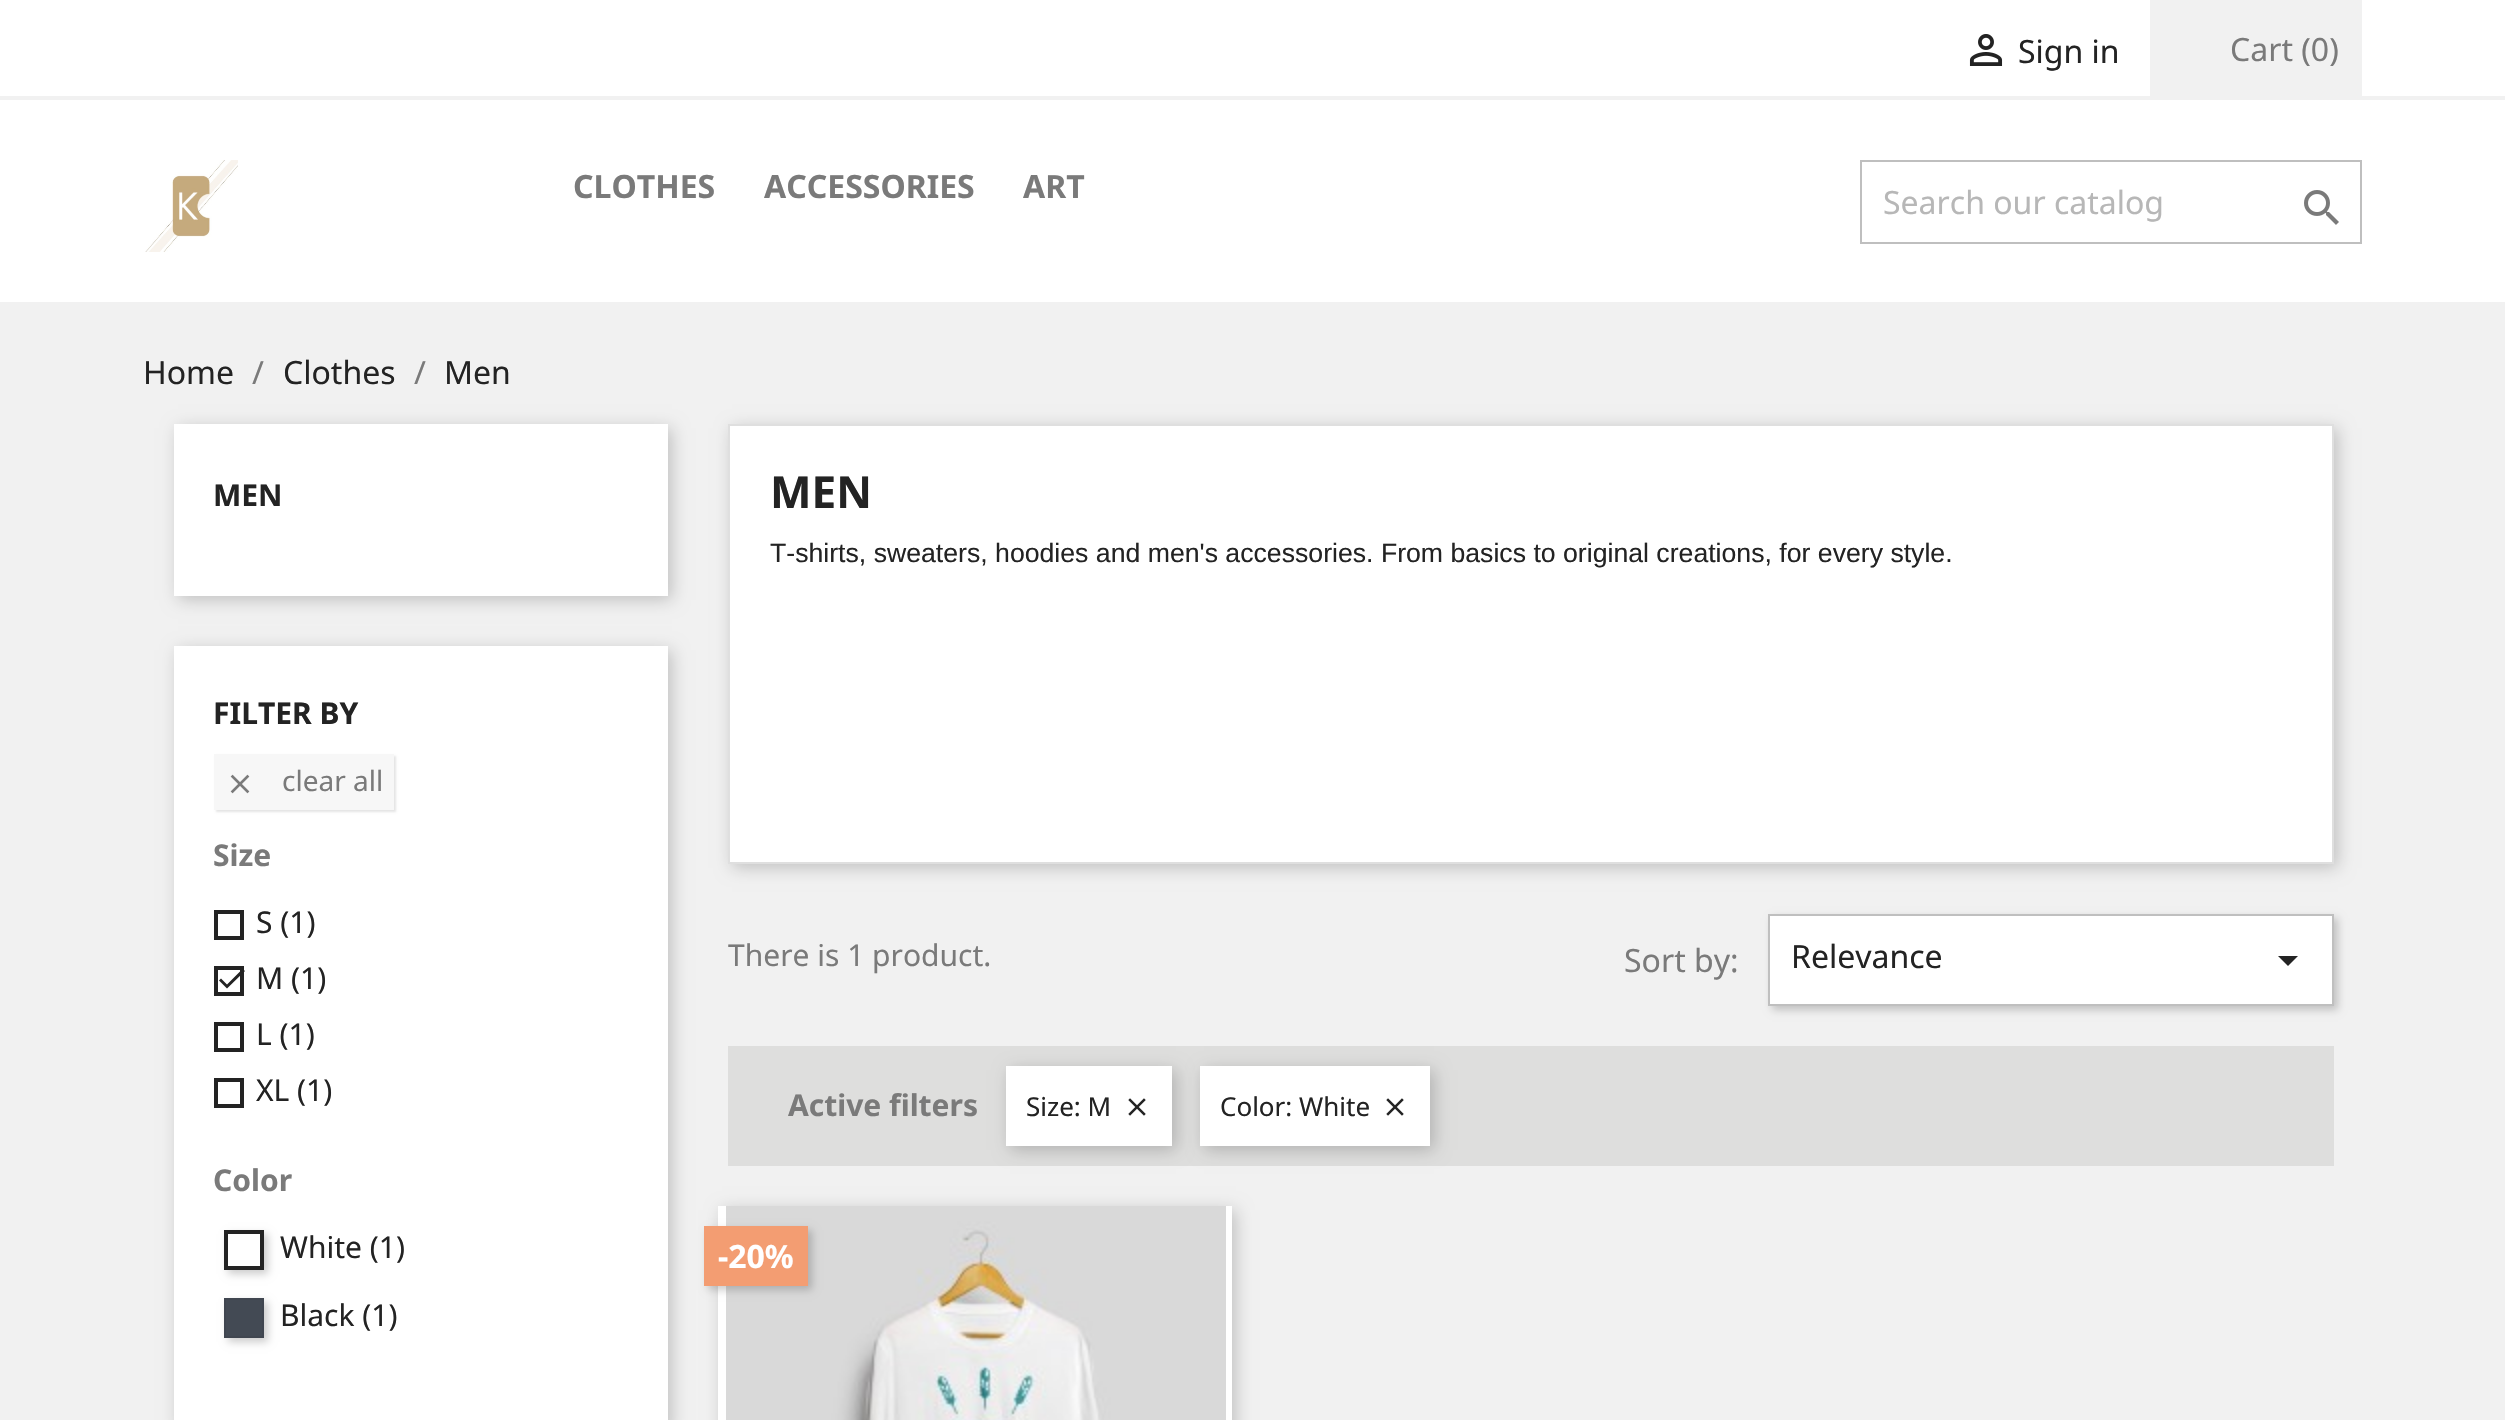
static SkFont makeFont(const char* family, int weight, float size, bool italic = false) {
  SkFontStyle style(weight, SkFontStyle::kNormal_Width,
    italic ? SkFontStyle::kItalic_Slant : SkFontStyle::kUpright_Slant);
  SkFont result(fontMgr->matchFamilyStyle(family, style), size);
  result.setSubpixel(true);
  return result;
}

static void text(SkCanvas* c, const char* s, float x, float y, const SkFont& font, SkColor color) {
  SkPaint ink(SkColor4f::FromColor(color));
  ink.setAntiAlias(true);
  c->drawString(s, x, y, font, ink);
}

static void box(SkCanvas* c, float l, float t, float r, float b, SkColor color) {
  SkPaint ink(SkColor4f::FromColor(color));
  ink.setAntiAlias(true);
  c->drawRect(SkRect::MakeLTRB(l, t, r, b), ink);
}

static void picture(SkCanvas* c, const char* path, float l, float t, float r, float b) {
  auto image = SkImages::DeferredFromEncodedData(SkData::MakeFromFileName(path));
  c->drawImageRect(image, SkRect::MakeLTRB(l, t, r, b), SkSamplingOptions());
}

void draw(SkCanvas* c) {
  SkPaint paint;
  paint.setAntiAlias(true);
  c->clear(0xffffffff);
  box(c, 0, 96, 2505, 100, 0xfff1f1f1);
  picture(c, "img_01.png", 1969, 34, 2003, 66);
  SkFont face1 = makeFont("Noto Sans", 400, 32);
  text(c, "Sign in", 2018, 63, face1, 0xff232323);
  box(c, 2150, 0, 2362, 96, 0xfff1f1f1);
  text(c, "Cart (0)", 2230, 61, face1, 0xff7a7a7a);
  picture(c, "img_02.png", 145, 160, 238, 252);
  SkFont face2 = makeFont("Noto Sans", 700, 32);
  text(c, "CLOTHES", 573, 198, face2, 0xff7a7a7a);
  text(c, "ACCESSORIES", 764, 198, face2, 0xff7a7a7a);
  text(c, "ART", 1023, 198, face2, 0xff7a7a7a);
  paint.setStyle(SkPaint::kStroke_Style);
  paint.setStrokeWidth(2);
  paint.setColor(0xffbfbfbf);
  c->drawRect(SkRect::MakeLTRB(1861, 161, 2361, 243), paint);
  text(c, "Search our catalog", 1883, 214, face1, 0xffb7b7b7);
  picture(c, "img_03.png", 2304, 190, 2339, 225);
  box(c, 0, 302, 2505, 1420, 0xfff1f1f1);
  text(c, "Home", 143, 384, face1, 0xff232323);
  text(c, "/", 252, 384, face1, 0xff7a7a7a);
  text(c, "Clothes", 283, 384, face1, 0xff232323);
  text(c, "/", 414, 384, face1, 0xff7a7a7a);
  text(c, "Men", 444, 384, face1, 0xff232323);
  paint.setStyle(SkPaint::kFill_Style);
  paint.setColor(0x33000000);
  paint.setMaskFilter(SkMaskFilter::MakeBlur(kNormal_SkBlurStyle, 8));
  c->drawRect(SkRect::MakeLTRB(178, 428, 672, 600), paint);
  paint.setMaskFilter(nullptr);
  box(c, 174, 424, 668, 596, 0xffffffff);
  SkFont face3 = makeFont("Noto Sans", 700, 30);
  text(c, "MEN", 213, 506, face3, 0xff232323);
  paint.setMaskFilter(SkMaskFilter::MakeBlur(kNormal_SkBlurStyle, 8));
  c->drawRect(SkRect::MakeLTRB(178, 650, 672, 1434), paint);
  paint.setMaskFilter(nullptr);
  box(c, 174, 646, 668, 1420, 0xffffffff);
  text(c, "FILTER BY", 213, 724, face3, 0xff232323);
  paint.setColor(0x1a000000);
  paint.setMaskFilter(SkMaskFilter::MakeBlur(kNormal_SkBlurStyle, 1));
  c->drawRect(SkRect::MakeLTRB(216, 756, 396, 812), paint);
  paint.setMaskFilter(nullptr);
  box(c, 214, 754, 394, 810, 0xfff7f7f7);
  picture(c, "img_04.png", 230, 774, 250, 794);
  SkFont face4 = makeFont("Noto Sans", 400, 28);
  text(c, "clear all", 282, 791, face4, 0xff7a7a7a);
  text(c, "Size", 213, 866, face3, 0xff7a7a7a);
  paint.setStyle(SkPaint::kStroke_Style);
  paint.setStrokeWidth(4);
  paint.setColor(0xff232323);
  c->drawRect(SkRect::MakeLTRB(216, 912, 242, 938), paint);
  SkFont face5 = makeFont("Noto Sans", 400, 30);
  text(c, "S (1)", 256, 933, face5, 0xff232323);
  c->drawRect(SkRect::MakeLTRB(216, 968, 242, 994), paint);
  paint.setStyle(SkPaint::kFill_Style);
  c->drawPath(SkPathBuilder().moveTo(227, 984.5f).lineTo(242.5f, 969).lineTo(245, 971).lineTo(227, 988.5f).lineTo(219, 980.5f).lineTo(221, 978.5f).close().detach(), paint);
  text(c, "M (1)", 256, 989, face5, 0xff232323);
  paint.setStyle(SkPaint::kStroke_Style);
  c->drawRect(SkRect::MakeLTRB(216, 1024, 242, 1050), paint);
  text(c, "L (1)", 256, 1045, face5, 0xff232323);
  c->drawRect(SkRect::MakeLTRB(216, 1080, 242, 1106), paint);
  text(c, "XL (1)", 256, 1101, face5, 0xff232323);
  text(c, "Color", 213, 1191, face3, 0xff7a7a7a);
  c->save();
  c->clipPath(SkPathBuilder(SkPathFillType::kEvenOdd).moveTo(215, 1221).lineTo(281, 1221).lineTo(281, 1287).lineTo(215, 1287).close().moveTo(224, 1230).lineTo(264, 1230).lineTo(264, 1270).lineTo(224, 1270).close().detach(), true);
  paint.setStyle(SkPaint::kFill_Style);
  paint.setColor(0x33000000);
  paint.setMaskFilter(SkMaskFilter::MakeBlur(kNormal_SkBlurStyle, 4));
  c->drawRect(SkRect::MakeLTRB(228, 1234, 268, 1274), paint);
  paint.setMaskFilter(nullptr);
  c->restore();
  paint.setStyle(SkPaint::kStroke_Style);
  paint.setColor(0xff232323);
  c->drawRect(SkRect::MakeLTRB(226, 1232, 262, 1268), paint);
  text(c, "White (1)", 280, 1258, face5, 0xff232323);
  paint.setStyle(SkPaint::kFill_Style);
  paint.setColor(0x33000000);
  paint.setMaskFilter(SkMaskFilter::MakeBlur(kNormal_SkBlurStyle, 4));
  c->drawRect(SkRect::MakeLTRB(228, 1302, 268, 1342), paint);
  paint.setMaskFilter(nullptr);
  paint.setColor(0xff434a54);
  c->drawRect(SkRect::MakeLTRB(225, 1299, 263, 1337), paint);
  paint.setStyle(SkPaint::kStroke_Style);
  paint.setStrokeWidth(2);
  paint.setColor(0xff404650);
  c->drawRect(SkRect::MakeLTRB(225, 1299, 263, 1337), paint);
  text(c, "Black (1)", 280, 1326, face5, 0xff232323);
  paint.setStyle(SkPaint::kFill_Style);
  paint.setColor(0x33000000);
  paint.setMaskFilter(SkMaskFilter::MakeBlur(kNormal_SkBlurStyle, 8));
  c->drawRect(SkRect::MakeLTRB(732, 428, 2338, 868), paint);
  paint.setMaskFilter(nullptr);
  paint.setColor(0xffffffff);
  c->drawRect(SkRect::MakeLTRB(729, 425, 2333, 863), paint);
  paint.setStyle(SkPaint::kStroke_Style);
  paint.setColor(0xffdfdfdf);
  c->drawRect(SkRect::MakeLTRB(729, 425, 2333, 863), paint);
  SkFont face6 = makeFont("Noto Sans", 700, 44);
  text(c, "MEN", 770, 508, face6, 0xff232323);
  SkFont face7 = makeFont("Liberation Sans", 400, 26.65f);
  text(c, "T-shirts, sweaters, hoodies and men's accessories. From basics to original creations, for every style.", 770, 562, face7, 0xff232323);
  text(c, "There is 1 product.", 728, 966, face5, 0xff7a7a7a);
  text(c, "Sort by:", 1624, 972, face1, 0xff7a7a7a);
  paint.setStyle(SkPaint::kFill_Style);
  paint.setColor(0x33000000);
  paint.setMaskFilter(SkMaskFilter::MakeBlur(kNormal_SkBlurStyle, 4));
  c->drawRect(SkRect::MakeLTRB(1772, 918, 2338, 1010), paint);
  paint.setMaskFilter(nullptr);
  paint.setColor(0xffffffff);
  c->drawRect(SkRect::MakeLTRB(1769, 915, 2333, 1005), paint);
  paint.setStyle(SkPaint::kStroke_Style);
  paint.setColor(0xffbfbfbf);
  c->drawRect(SkRect::MakeLTRB(1769, 915, 2333, 1005), paint);
  text(c, "Relevance", 1791, 968, face1, 0xff232323);
  paint.setStyle(SkPaint::kFill_Style);
  paint.setColor(0xff232323);
  c->drawPath(SkPathBuilder().moveTo(2278, 956).lineTo(2298, 956).lineTo(2288, 966).close().detach(), paint);
  box(c, 728, 1046, 2334, 1166, 0xffdededd);
  text(c, "Active filters", 788, 1116, face3, 0xff7a7a7a);
  paint.setColor(0x33000000);
  paint.setMaskFilter(SkMaskFilter::MakeBlur(kNormal_SkBlurStyle, 8));
  c->drawRect(SkRect::MakeLTRB(1010, 1070, 1176, 1150), paint);
  paint.setMaskFilter(nullptr);
  box(c, 1006, 1066, 1172, 1146, 0xffffffff);
  SkFont face8 = makeFont("Noto Sans", 400, 26);
  text(c, "Size: M", 1026, 1116, face8, 0xff232323);
  picture(c, "img_05.png", 1128, 1098, 1146, 1116);
  paint.setMaskFilter(SkMaskFilter::MakeBlur(kNormal_SkBlurStyle, 8));
  c->drawRect(SkRect::MakeLTRB(1204, 1070, 1434, 1150), paint);
  paint.setMaskFilter(nullptr);
  box(c, 1200, 1066, 1430, 1146, 0xffffffff);
  text(c, "Color: White", 1220, 1116, face8, 0xff232323);
  picture(c, "img_05.png", 1386, 1098, 1404, 1116);
  paint.setMaskFilter(SkMaskFilter::MakeBlur(kNormal_SkBlurStyle, 8));
  c->drawRect(SkRect::MakeLTRB(722, 1210, 1236, 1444), paint);
  paint.setMaskFilter(nullptr);
  box(c, 718, 1206, 1232, 1420, 0xffffffff);
  picture(c, "img_06.png", 726, 1206, 1226, 1420);
  paint.setMaskFilter(SkMaskFilter::MakeBlur(kNormal_SkBlurStyle, 4));
  c->drawRect(SkRect::MakeLTRB(708, 1230, 812, 1290), paint);
  paint.setMaskFilter(nullptr);
  box(c, 704, 1226, 808, 1286, 0xfff39d72);
  text(c, "-20%", 718, 1268, face2, 0xffffffff);
}
